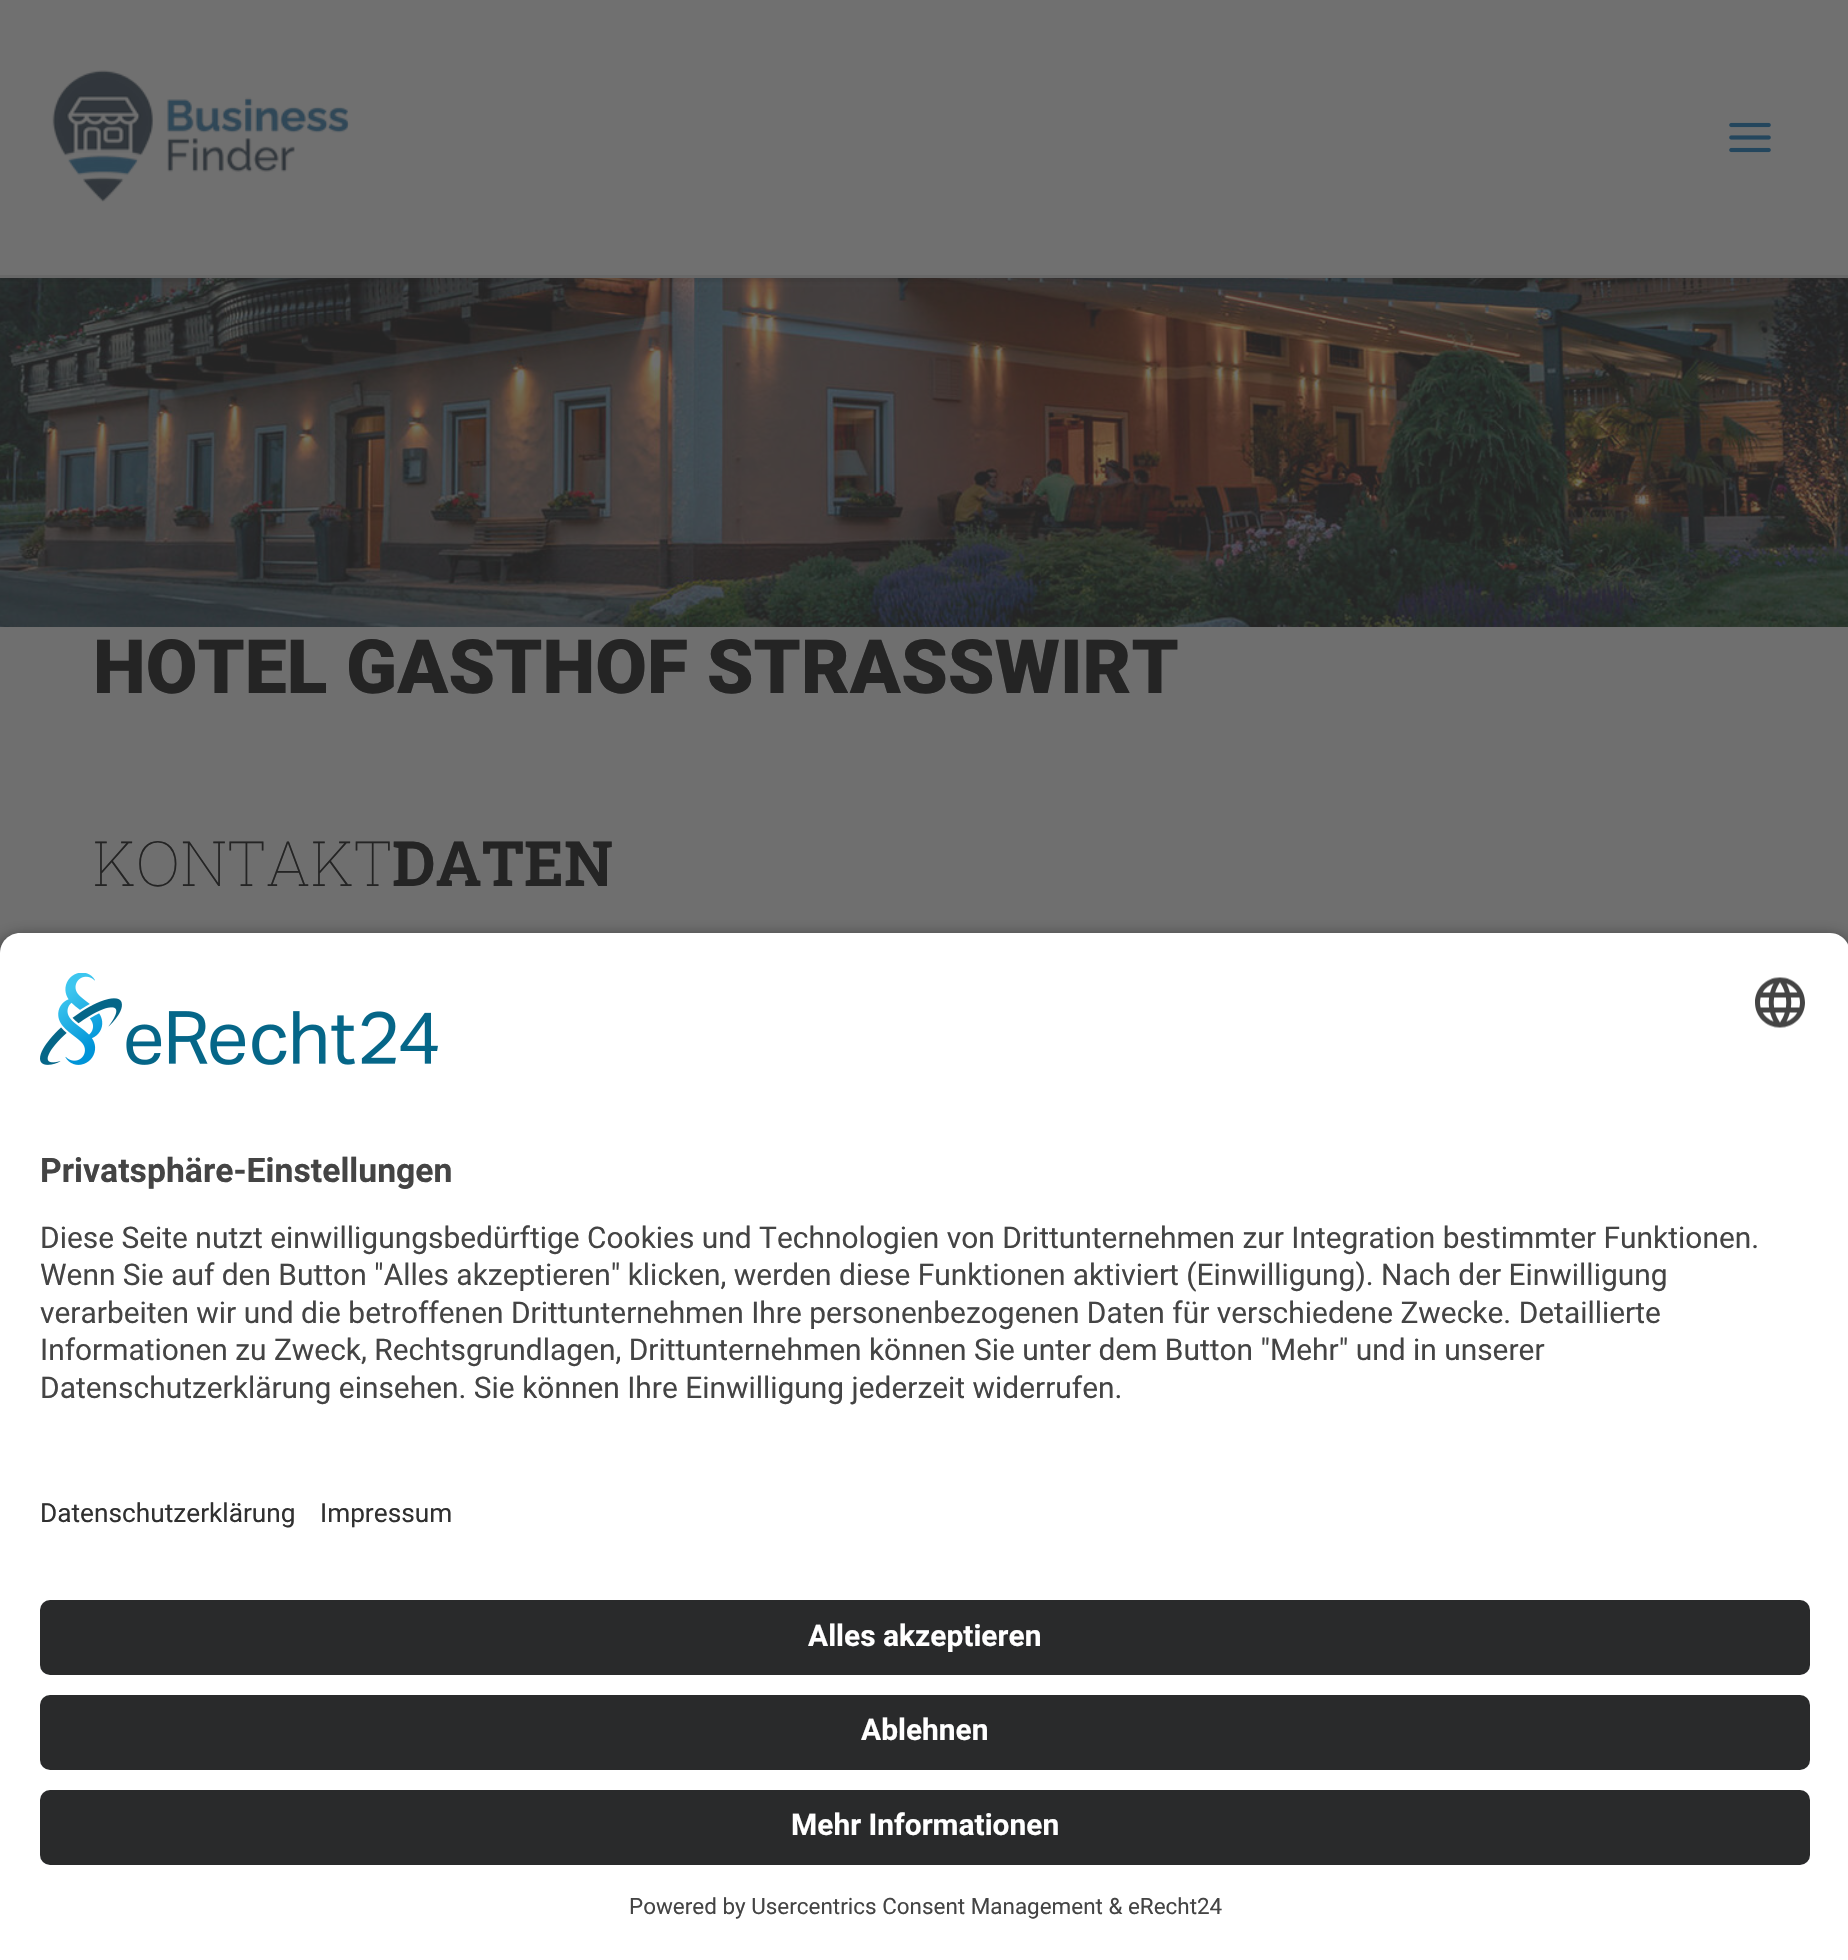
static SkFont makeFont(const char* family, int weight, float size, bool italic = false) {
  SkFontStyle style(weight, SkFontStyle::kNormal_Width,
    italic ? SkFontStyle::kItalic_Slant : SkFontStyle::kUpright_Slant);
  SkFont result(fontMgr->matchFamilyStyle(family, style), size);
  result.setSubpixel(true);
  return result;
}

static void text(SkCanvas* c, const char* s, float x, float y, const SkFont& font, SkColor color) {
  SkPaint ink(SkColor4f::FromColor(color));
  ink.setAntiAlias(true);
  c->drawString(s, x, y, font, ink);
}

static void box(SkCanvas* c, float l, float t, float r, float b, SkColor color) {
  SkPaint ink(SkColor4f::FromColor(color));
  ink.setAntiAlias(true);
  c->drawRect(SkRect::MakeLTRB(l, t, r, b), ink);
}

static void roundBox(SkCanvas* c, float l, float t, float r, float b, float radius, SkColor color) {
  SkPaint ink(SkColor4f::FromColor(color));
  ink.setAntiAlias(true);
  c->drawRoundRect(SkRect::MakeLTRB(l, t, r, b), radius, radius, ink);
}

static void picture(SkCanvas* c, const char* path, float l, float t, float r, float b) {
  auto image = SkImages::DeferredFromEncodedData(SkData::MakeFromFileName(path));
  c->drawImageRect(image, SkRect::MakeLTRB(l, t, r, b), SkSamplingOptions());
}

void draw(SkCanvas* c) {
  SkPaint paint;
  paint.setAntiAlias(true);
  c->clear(0xff6f6f6f);
  picture(c, "img_03.png", 0, 278, 1848, 627);
  paint.setColor(0x33242424);
  paint.setMaskFilter(SkMaskFilter::MakeBlur(kNormal_SkBlurStyle, 2.5f));
  c->drawRect(SkRect::MakeLTRB(0, 3, 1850, 280), paint);
  paint.setMaskFilter(nullptr);
  box(c, 0, 0, 1848, 275, 0xff707070);
  box(c, 0, 275, 1848, 278, 0xff686868);
  picture(c, "img_01.png", 52, 70, 350, 202);
  picture(c, "img_02.png", 1729, 122, 1771, 153);
  SkFont face1 = makeFont("Roboto", 900, 75);
  text(c, "HOTEL GASTHOF STRASSWIRT", 93, 693, face1, 0xff242424);
  SkFont face2 = makeFont("Roboto Slab", 100, 62.5f);
  text(c, "KONTAKT", 93, 886, face2, 0xff242424);
  SkFont face3 = makeFont("Roboto Slab", 700, 62.5f);
  text(c, "DATEN", 392, 886, face3, 0xff242424);
  paint.setColor(0xcc000000);
  paint.setMaskFilter(SkMaskFilter::MakeBlur(kNormal_SkBlurStyle, 9));
  c->drawRoundRect(SkRect::MakeLTRB(0, 940, 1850, 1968), 20, 20, paint);
  paint.setMaskFilter(nullptr);
  paint.setColor(0xffffffff);
  c->drawPath(SkPathBuilder().moveTo(20, 933).lineTo(1830, 933).cubicTo(1841, 933, 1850, 942, 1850, 953).lineTo(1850, 1458).lineTo(0, 1458).lineTo(0, 953).cubicTo(0, 942, 9, 933, 20, 933).close().detach(), paint);
  picture(c, "img_04.png", 40, 973, 438, 1065);
  picture(c, "img_05.png", 1755, 977, 1805, 1028);
  SkFont face4 = makeFont("Roboto", 700, 33.75f);
  text(c, "Privatsphäre-Einstellungen", 40, 1182, face4, 0xff444444);
  SkFont face5 = makeFont("Roboto", 400, 29.93f);
  text(c, "Diese Seite nutzt einwilligungsbedürftige Cookies und Technologien von Drittunternehmen zur Integration bestimmter Funktionen.", 40, 1248, face5, 0xff444444);
  text(c, "Wenn Sie auf den Button \"Alles akzeptieren\" klicken, werden diese Funktionen aktiviert (Einwilligung). Nach der Einwilligung", 40, 1285, face5, 0xff444444);
  text(c, "verarbeiten wir und die betroffenen Drittunternehmen Ihre personenbezogenen Daten für verschiedene Zwecke. Detaillierte", 40, 1323, face5, 0xff444444);
  text(c, "Informationen zu Zweck, Rechtsgrundlagen, Drittunternehmen können Sie unter dem Button \"Mehr\" und in unserer", 40, 1360, face5, 0xff444444);
  text(c, "Datenschutzerklärung einsehen. Sie können Ihre Einwilligung jederzeit widerrufen.", 40, 1398, face5, 0xff444444);
  box(c, 0, 1458, 1848, 1960, 0xffffffff);
  SkFont face6 = makeFont("Roboto", 400, 26.25f);
  text(c, "Datenschutzerklärung", 40, 1522, face6, 0xff303030);
  text(c, "Impressum", 320, 1522, face6, 0xff303030);
  roundBox(c, 40, 1600, 1810, 1675, 10, 0xff292a2b);
  SkFont face7 = makeFont("Roboto", 700, 29.93f);
  text(c, "Alles akzeptieren", 808, 1646, face7, 0xffffffff);
  roundBox(c, 40, 1695, 1810, 1770, 10, 0xff292a2b);
  text(c, "Ablehnen", 861, 1740, face7, 0xffffffff);
  roundBox(c, 40, 1790, 1810, 1865, 10, 0xff292a2b);
  text(c, "Mehr Informationen", 791, 1835, face7, 0xffffffff);
  SkFont face8 = makeFont("Roboto", 400, 22.45f);
  text(c, "Powered by Usercentrics Consent Management & eRecht24", 629, 1914, face8, 0xff444444);
}
